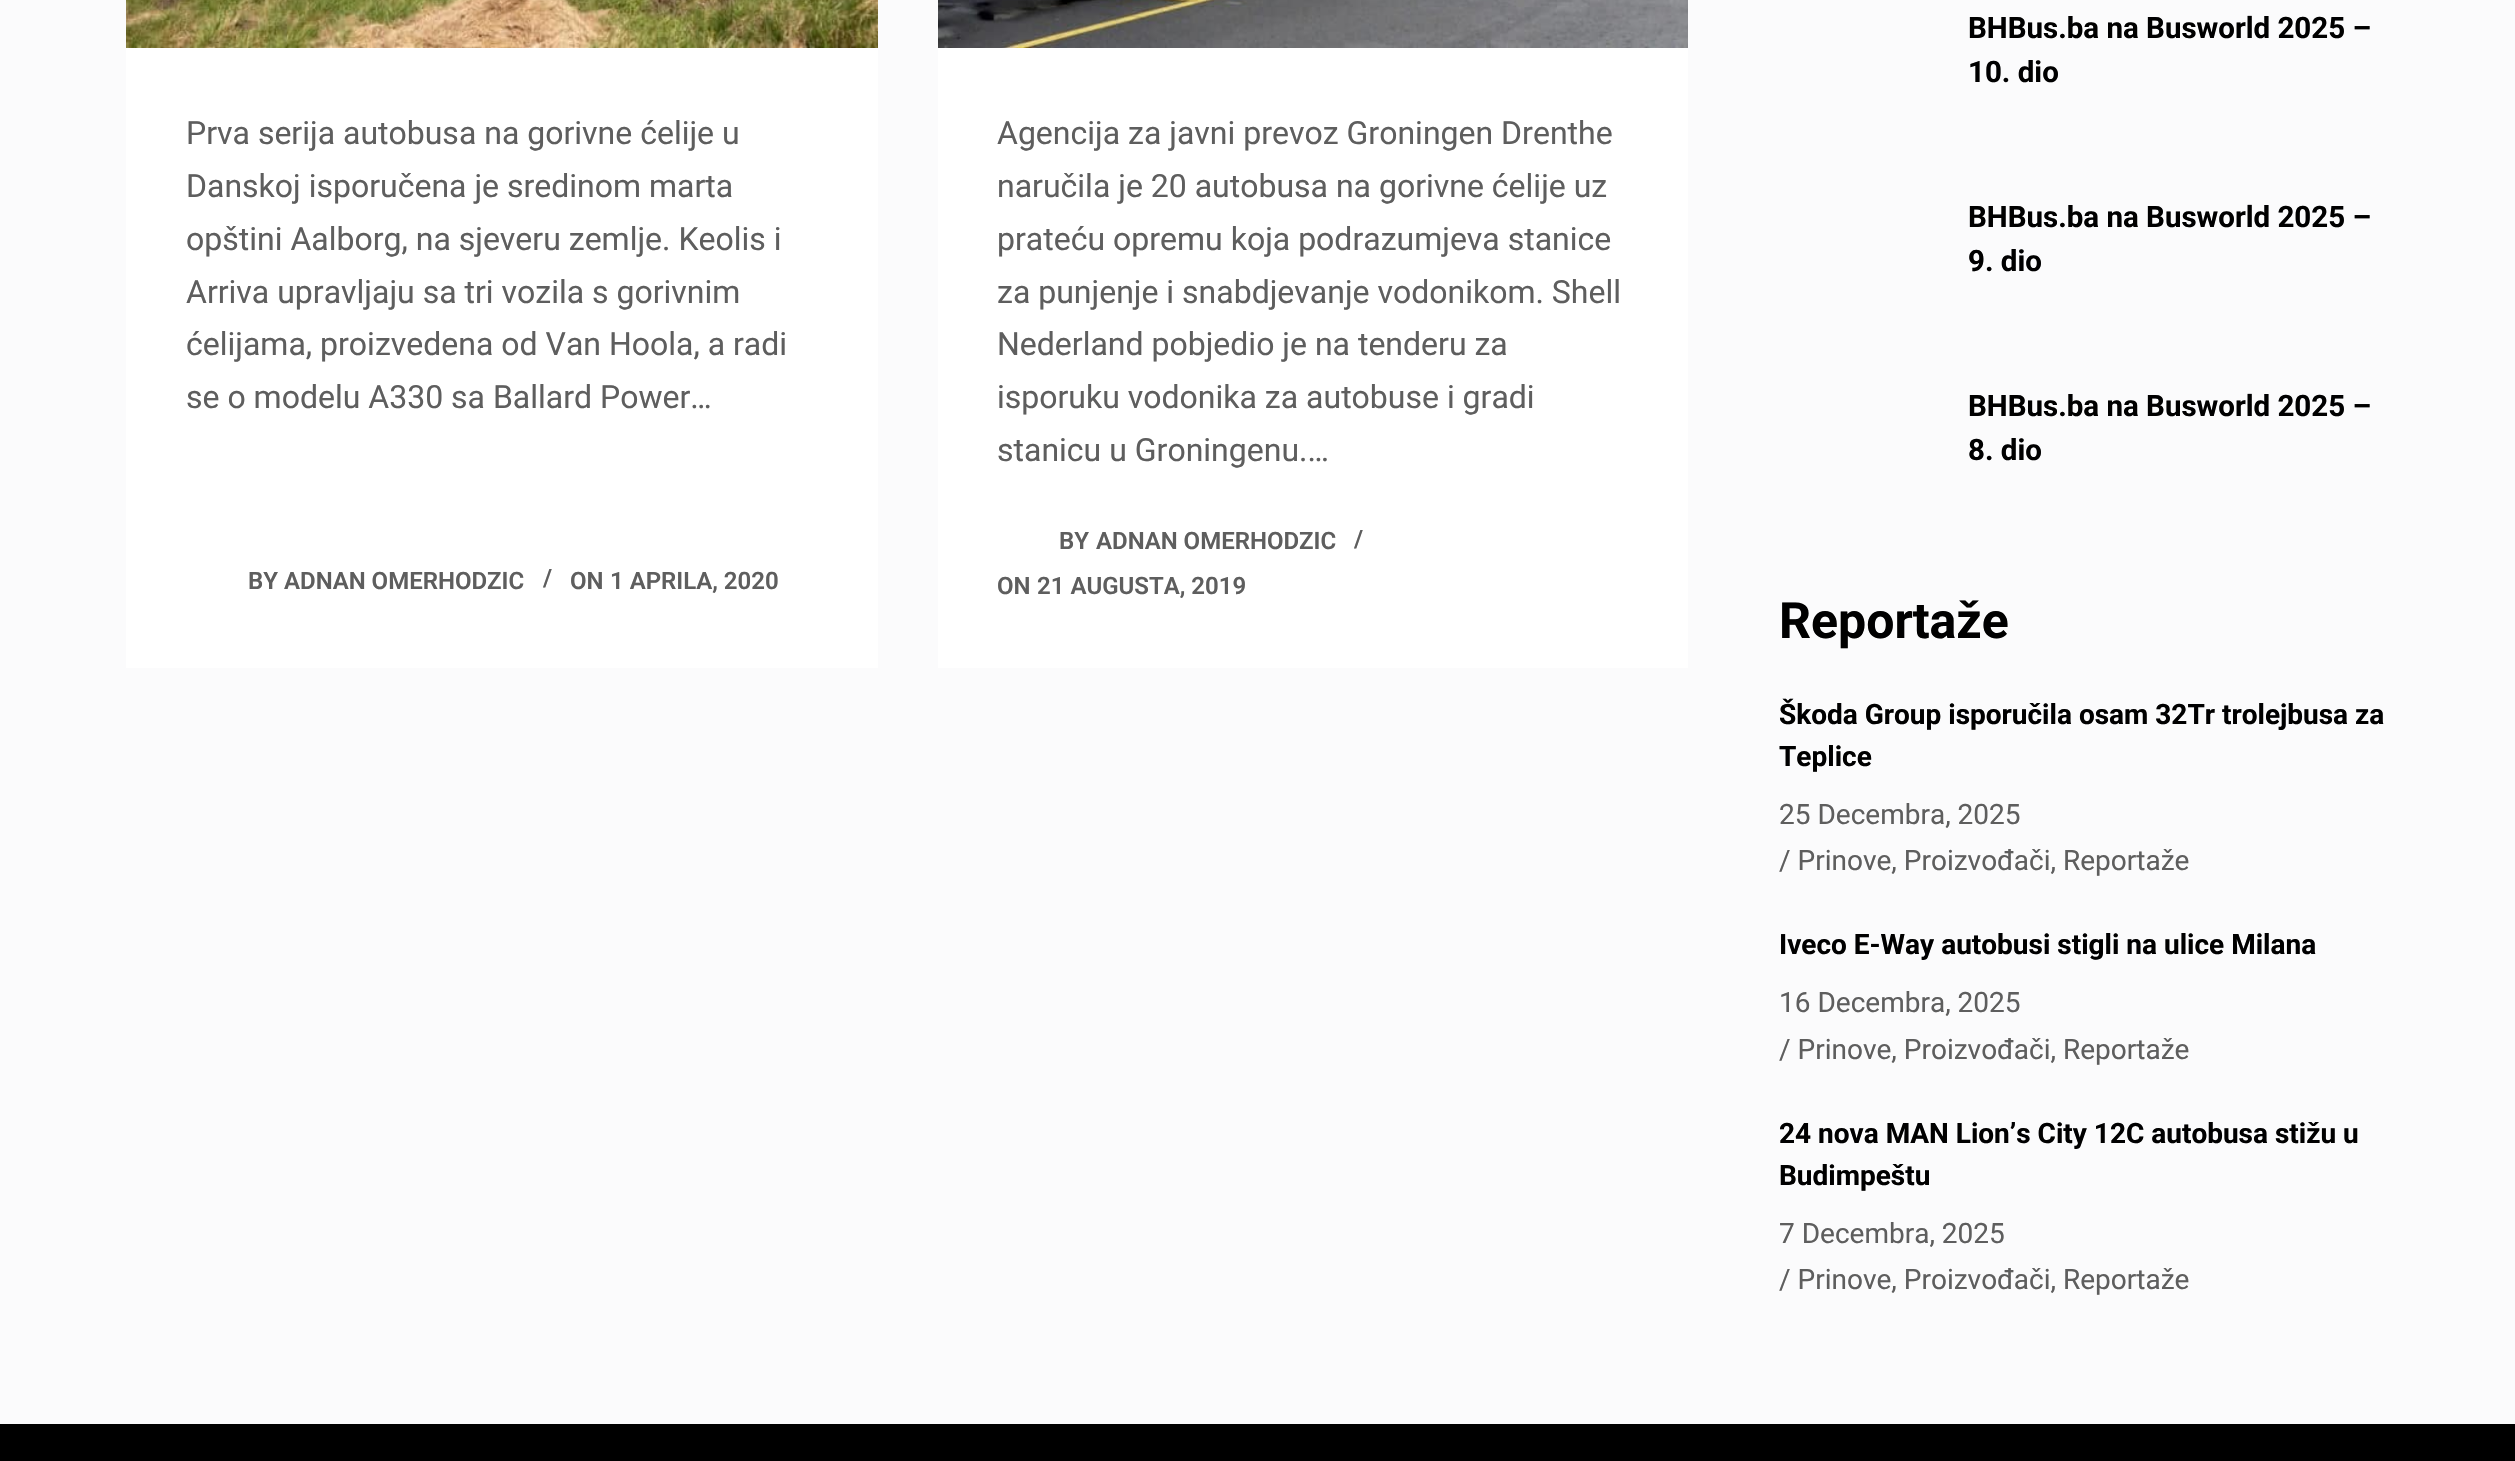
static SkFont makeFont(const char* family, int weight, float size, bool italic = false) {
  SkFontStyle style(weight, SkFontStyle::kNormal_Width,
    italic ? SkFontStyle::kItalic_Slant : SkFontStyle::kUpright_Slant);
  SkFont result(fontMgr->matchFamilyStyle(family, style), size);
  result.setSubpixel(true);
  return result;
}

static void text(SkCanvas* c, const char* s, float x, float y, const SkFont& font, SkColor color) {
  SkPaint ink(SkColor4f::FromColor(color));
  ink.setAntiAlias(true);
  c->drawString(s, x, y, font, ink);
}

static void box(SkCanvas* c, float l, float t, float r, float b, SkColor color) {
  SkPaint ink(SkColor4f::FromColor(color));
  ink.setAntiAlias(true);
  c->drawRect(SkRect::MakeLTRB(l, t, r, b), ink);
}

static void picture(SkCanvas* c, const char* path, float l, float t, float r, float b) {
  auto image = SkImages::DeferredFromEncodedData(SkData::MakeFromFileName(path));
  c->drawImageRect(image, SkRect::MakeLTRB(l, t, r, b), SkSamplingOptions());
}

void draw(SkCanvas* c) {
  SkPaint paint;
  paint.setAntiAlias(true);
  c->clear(0xfffbfbfc);
  box(c, 126, 48, 878, 668, 0xffffffff);
  picture(c, "img_01.png", 126, 0, 878, 48);
  SkFont face1 = makeFont("Roboto", 400, 32);
  text(c, "Prva serija autobusa na gorivne ćelije u", 186, 144, face1, 0xff5e5e5e);
  text(c, "Danskoj isporučena je sredinom marta", 186, 197, face1, 0xff5e5e5e);
  text(c, "opštini Aalborg, na sjeveru zemlje. Keolis i", 186, 250, face1, 0xff5e5e5e);
  text(c, "Arriva upravljaju sa tri vozila s gorivnim", 186, 303, face1, 0xff5e5e5e);
  text(c, "ćelijama, proizvedena od Van Hoola, a radi", 186, 355, face1, 0xff5e5e5e);
  text(c, "se o modelu A330 sa Ballard Power…", 186, 408, face1, 0xff5e5e5e);
  SkFont face2 = makeFont("Roboto", 600, 24);
  text(c, "BY", 248, 589, face2, 0xff5e5e5e);
  text(c, "ADNAN OMERHODZIC", 284, 589, face2, 0xff5e5e5e);
  text(c, "/", 543, 586, face2, 0xff5e5e5e);
  text(c, "ON", 570, 589, face2, 0xff5e5e5e);
  text(c, "1 APRILA, 2020", 610, 589, face2, 0xff5e5e5e);
  box(c, 938, 48, 1688, 668, 0xffffffff);
  picture(c, "img_02.png", 938, 0, 1688, 48);
  text(c, "Agencija za javni prevoz Groningen Drenthe", 997, 144, face1, 0xff5e5e5e);
  text(c, "naručila je 20 autobusa na gorivne ćelije uz", 997, 197, face1, 0xff5e5e5e);
  text(c, "prateću opremu koja podrazumjeva stanice", 997, 250, face1, 0xff5e5e5e);
  text(c, "za punjenje i snabdjevanje vodonikom. Shell", 997, 303, face1, 0xff5e5e5e);
  text(c, "Nederland pobjedio je na tenderu za", 997, 355, face1, 0xff5e5e5e);
  text(c, "isporuku vodonika za autobuse i gradi", 997, 408, face1, 0xff5e5e5e);
  text(c, "stanicu u Groningenu.…", 997, 461, face1, 0xff5e5e5e);
  text(c, "BY", 1059, 549, face2, 0xff5e5e5e);
  text(c, "ADNAN OMERHODZIC", 1096, 549, face2, 0xff5e5e5e);
  text(c, "/", 1354, 547, face2, 0xff5e5e5e);
  text(c, "ON", 997, 594, face2, 0xff5e5e5e);
  text(c, "21 AUGUSTA, 2019", 1037, 594, face2, 0xff5e5e5e);
  SkFont face3 = makeFont("Roboto", 700, 29.5f);
  text(c, "BHBus.ba na Busworld 2025 –", 1968, 38, face3, 0xff000000);
  text(c, "10. dio", 1968, 82, face3, 0xff000000);
  text(c, "BHBus.ba na Busworld 2025 –", 1968, 227, face3, 0xff000000);
  text(c, "9. dio", 1968, 271, face3, 0xff000000);
  text(c, "BHBus.ba na Busworld 2025 –", 1968, 416, face3, 0xff000000);
  text(c, "8. dio", 1968, 460, face3, 0xff000000);
  SkFont face4 = makeFont("Roboto", 700, 50);
  text(c, "Reportaže", 1779, 638, face4, 0xff000000);
  SkFont face5 = makeFont("Roboto", 700, 28);
  text(c, "Škoda Group isporučila osam 32Tr trolejbusa za", 1779, 724, face5, 0xff000000);
  text(c, "Teplice", 1779, 766, face5, 0xff000000);
  SkFont face6 = makeFont("Roboto", 400, 28);
  text(c, "25 Decembra, 2025", 1779, 824, face6, 0xff5e5e5e);
  text(c, "/ Prinove, Proizvođači, Reportaže", 1779, 870, face6, 0xff5e5e5e);
  text(c, "Iveco E-Way autobusi stigli na ulice Milana", 1779, 954, face5, 0xff000000);
  text(c, "16 Decembra, 2025", 1779, 1012, face6, 0xff5e5e5e);
  text(c, "/ Prinove, Proizvođači, Reportaže", 1779, 1059, face6, 0xff5e5e5e);
  text(c, "24 nova MAN Lion’s City 12C autobusa stižu u", 1779, 1143, face5, 0xff000000);
  text(c, "Budimpeštu", 1779, 1185, face5, 0xff000000);
  text(c, "7 Decembra, 2025", 1779, 1243, face6, 0xff5e5e5e);
  text(c, "/ Prinove, Proizvođači, Reportaže", 1779, 1289, face6, 0xff5e5e5e);
  box(c, 0, 1424, 2515, 1461, 0xff000000);
}
